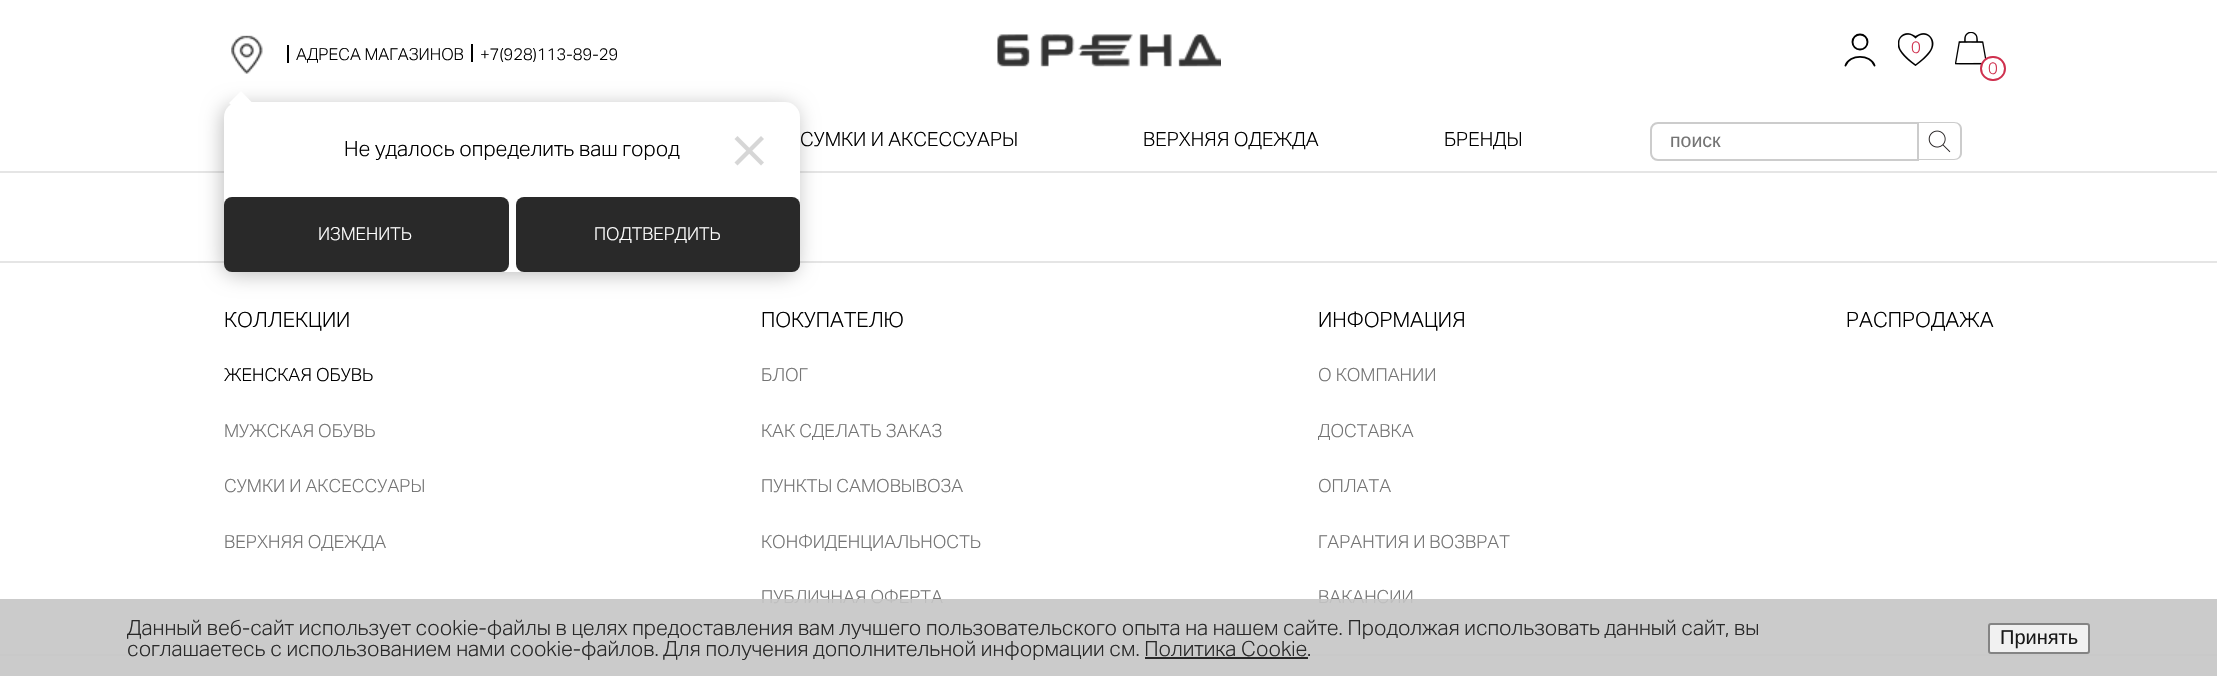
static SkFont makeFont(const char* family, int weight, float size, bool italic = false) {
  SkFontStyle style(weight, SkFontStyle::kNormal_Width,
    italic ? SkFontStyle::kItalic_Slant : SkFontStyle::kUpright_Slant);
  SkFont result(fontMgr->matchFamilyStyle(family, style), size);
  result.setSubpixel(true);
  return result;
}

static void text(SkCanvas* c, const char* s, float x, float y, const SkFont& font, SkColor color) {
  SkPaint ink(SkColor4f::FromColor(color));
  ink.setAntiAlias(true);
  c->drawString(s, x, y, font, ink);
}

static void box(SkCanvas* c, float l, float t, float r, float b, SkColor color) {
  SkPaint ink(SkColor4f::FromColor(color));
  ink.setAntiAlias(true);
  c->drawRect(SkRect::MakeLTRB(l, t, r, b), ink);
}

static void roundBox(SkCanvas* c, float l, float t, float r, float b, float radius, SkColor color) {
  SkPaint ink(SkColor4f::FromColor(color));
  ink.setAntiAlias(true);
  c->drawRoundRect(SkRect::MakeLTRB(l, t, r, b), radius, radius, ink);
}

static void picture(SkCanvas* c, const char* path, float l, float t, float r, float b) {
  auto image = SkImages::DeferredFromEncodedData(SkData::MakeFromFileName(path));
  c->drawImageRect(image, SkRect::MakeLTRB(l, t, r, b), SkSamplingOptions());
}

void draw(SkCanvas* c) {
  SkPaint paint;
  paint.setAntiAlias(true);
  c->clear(0xffffffff);
  box(c, 287, 45, 289, 63, 0xff000000);
  picture(c, "img_01.png", 231, 35, 263, 74);
  SkFont face1 = makeFont("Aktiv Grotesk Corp", 300, 16.5f);
  text(c, "АДРЕСА МАГАЗИНОВ", 296, 60, face1, 0xff000000);
  box(c, 471, 44, 473, 62, 0xff000000);
  text(c, "+7(928)113-89-29", 480, 60, face1, 0xff000000);
  picture(c, "img_02.png", 997, 34, 1221, 67);
  paint.setStyle(SkPaint::kStroke_Style);
  paint.setStrokeWidth(1.9f);
  paint.setStrokeCap(SkPaint::kRound_Cap);
  paint.setColor(0xff000000);
  c->drawPath(SkPathBuilder().moveTo(1874.5f, 65.5f).cubicTo(1870.5f, 54, 1849.5f, 54, 1845.5f, 65.5f).detach(), paint);
  paint.setStrokeCap(SkPaint::kButt_Cap);
  c->drawCircle(1860, 42, 7.5f, paint);
  picture(c, "img_03.png", 1898, 33, 1934, 66);
  text(c, "0", 1911, 53, face1, 0xffcf304e);
  picture(c, "img_04.png", 1955, 32, 1987, 65);
  paint.setStyle(SkPaint::kFill_Style);
  paint.setColor(0xffffffff);
  c->drawRoundRect(SkRect::MakeLTRB(1981, 57, 2005, 80), 11.5f, 11.5f, paint);
  paint.setStyle(SkPaint::kStroke_Style);
  paint.setStrokeWidth(2);
  paint.setColor(0xffcf304e);
  c->drawRoundRect(SkRect::MakeLTRB(1981, 57, 2005, 80), 11.5f, 11.5f, paint);
  text(c, "0", 1988, 74, face1, 0xffcf304e);
  box(c, 0, 171, 2217, 173, 0xffe5e5e5);
  box(c, 0, 261, 2217, 263, 0xffe5e5e5);
  paint.setStyle(SkPaint::kFill_Style);
  paint.setColor(0x40000000);
  paint.setMaskFilter(SkMaskFilter::MakeBlur(kNormal_SkBlurStyle, 10));
  c->drawRoundRect(SkRect::MakeLTRB(222, 105, 798, 275), 15, 15, paint);
  paint.setMaskFilter(nullptr);
  roundBox(c, 224, 102, 800, 272, 15, 0xffffffff);
  paint.setColor(0xffffffff);
  c->drawPath(SkPathBuilder().moveTo(241, 91).lineTo(252.5f, 103).lineTo(241, 114.5f).lineTo(229, 103).close().detach(), paint);
  SkFont face2 = makeFont("Aktiv Grotesk Corp", 300, 21);
  text(c, "Не удалось определить ваш город", 344, 156, face2, 0xff000000);
  paint.setColor(0xffd6d6d6);
  c->drawPath(SkPathBuilder().moveTo(761, 136).lineTo(764, 139).lineTo(737.5f, 165.5f).lineTo(734.5f, 162.5f).close().detach(), paint);
  c->drawPath(SkPathBuilder().moveTo(734.5f, 139).lineTo(737.5f, 136).lineTo(764, 162.5f).lineTo(761, 165.5f).close().detach(), paint);
  roundBox(c, 224, 197, 509, 272, 8, 0xff292929);
  SkFont face3 = makeFont("Aktiv Grotesk Corp", 300, 17.75f);
  text(c, "ИЗМЕНИТЬ", 318, 240, face3, 0xffffffff);
  roundBox(c, 516, 197, 800, 272, 8, 0xff292929);
  text(c, "ПОДТВЕРДИТЬ", 594, 240, face3, 0xffffffff);
  SkFont face4 = makeFont("Aktiv Grotesk Corp", 300, 19.5f);
  text(c, "СУМКИ И АКСЕССУАРЫ", 800, 146, face4, 0xff000000);
  text(c, "ВЕРХНЯЯ ОДЕЖДА", 1143, 146, face4, 0xff000000);
  text(c, "БРЕНДЫ", 1444, 146, face4, 0xff000000);
  picture(c, "img_05.png", 1928, 130, 1951, 153);
  paint.setColor(0xffcccccc);
  c->drawPath(SkPathBuilder(SkPathFillType::kEvenOdd).moveTo(1918, 122).lineTo(1954, 122).cubicTo(1959, 122, 1962, 125, 1962, 129).lineTo(1962, 153).cubicTo(1962, 157, 1959, 160, 1954, 160).lineTo(1918, 160).close().moveTo(1918, 123).lineTo(1954, 123).cubicTo(1958, 123, 1960, 126, 1960, 129).lineTo(1960, 153).cubicTo(1960, 156, 1958, 159, 1954, 159).lineTo(1918, 159).close().detach(), paint);
  paint.setColor(0xffffffff);
  c->drawPath(SkPathBuilder().moveTo(1658, 123).lineTo(1918, 123).lineTo(1918, 160).lineTo(1658, 160).cubicTo(1654, 160, 1651, 157, 1651, 153).lineTo(1651, 130).cubicTo(1651, 126, 1654, 123, 1658, 123).close().detach(), paint);
  paint.setStyle(SkPaint::kStroke_Style);
  paint.setColor(0xffcccccc);
  c->drawPath(SkPathBuilder().moveTo(1658, 123).lineTo(1918, 123).lineTo(1918, 160).lineTo(1658, 160).cubicTo(1654, 160, 1651, 157, 1651, 153).lineTo(1651, 130).cubicTo(1651, 126, 1654, 123, 1658, 123).close().detach(), paint);
  SkFont face5 = makeFont("Liberation Sans", 400, 19.5f);
  text(c, "поиск", 1670, 147, face5, 0xff747474);
  text(c, "КОЛЛЕКЦИИ", 224, 327, face2, 0xff000000);
  SkFont face6 = makeFont("Aktiv Grotesk Corp", 300, 18);
  text(c, "ЖЕНСКАЯ ОБУВЬ", 224, 381, face6, 0xff000000);
  text(c, "МУЖСКАЯ ОБУВЬ", 224, 437, face6, 0xff747474);
  text(c, "СУМКИ И АКСЕССУАРЫ", 224, 492, face6, 0xff747474);
  text(c, "ВЕРХНЯЯ ОДЕЖДА", 224, 548, face6, 0xff747474);
  text(c, "ПОКУПАТЕЛЮ", 761, 327, face2, 0xff000000);
  text(c, "БЛОГ", 761, 381, face6, 0xff747474);
  text(c, "КАК СДЕЛАТЬ ЗАКАЗ", 761, 437, face6, 0xff747474);
  text(c, "ПУНКТЫ САМОВЫВОЗА", 761, 492, face6, 0xff747474);
  text(c, "КОНФИДЕНЦИАЛЬНОСТЬ", 761, 548, face6, 0xff747474);
  text(c, "ПУБЛИЧНАЯ ОФЕРТА", 761, 603, face6, 0xff747474);
  text(c, "ИНФОРМАЦИЯ", 1318, 327, face2, 0xff000000);
  text(c, "О КОМПАНИИ", 1318, 381, face6, 0xff747474);
  text(c, "ДОСТАВКА", 1318, 437, face6, 0xff747474);
  text(c, "ОПЛАТА", 1318, 492, face6, 0xff747474);
  text(c, "ГАРАНТИЯ И ВОЗВРАТ", 1318, 548, face6, 0xff747474);
  text(c, "ВАКАНСИИ", 1318, 603, face6, 0xff747474);
  text(c, "РАСПРОДАЖА", 1846, 327, face2, 0xff000000);
  box(c, 0, 654, 2217, 656, 0xffe5e5e5);
  box(c, 0, 599, 2217, 676, 0xe6c5c5c5);
  text(c, "Данный веб-сайт использует cookie-файлы в целях предоставления вам лучшего пользовательского опыта на нашем сайте. Продолжая использовать данный сайт, вы", 127, 635, face2, 0xff292929);
  text(c, "соглашаетесь с использованием нами cookie-файлов. Для получения дополнительной информации см. Политика Cookie", 127, 656, face2, 0xff292929);
  text(c, ".", 1307, 656, face2, 0xff292929);
  box(c, 1145, 657, 1308, 659, 0xff292929);
  paint.setStyle(SkPaint::kFill_Style);
  paint.setColor(0xfff1f1f1);
  c->drawRoundRect(SkRect::MakeLTRB(1989, 624, 2089, 653), 2, 2, paint);
  paint.setStyle(SkPaint::kStroke_Style);
  paint.setColor(0xff848484);
  c->drawRoundRect(SkRect::MakeLTRB(1989, 624, 2089, 653), 2, 2, paint);
  SkFont face7 = makeFont("Liberation Sans", 400, 20);
  text(c, "Принять", 2000, 644, face7, 0xff1a1a1a);
}
